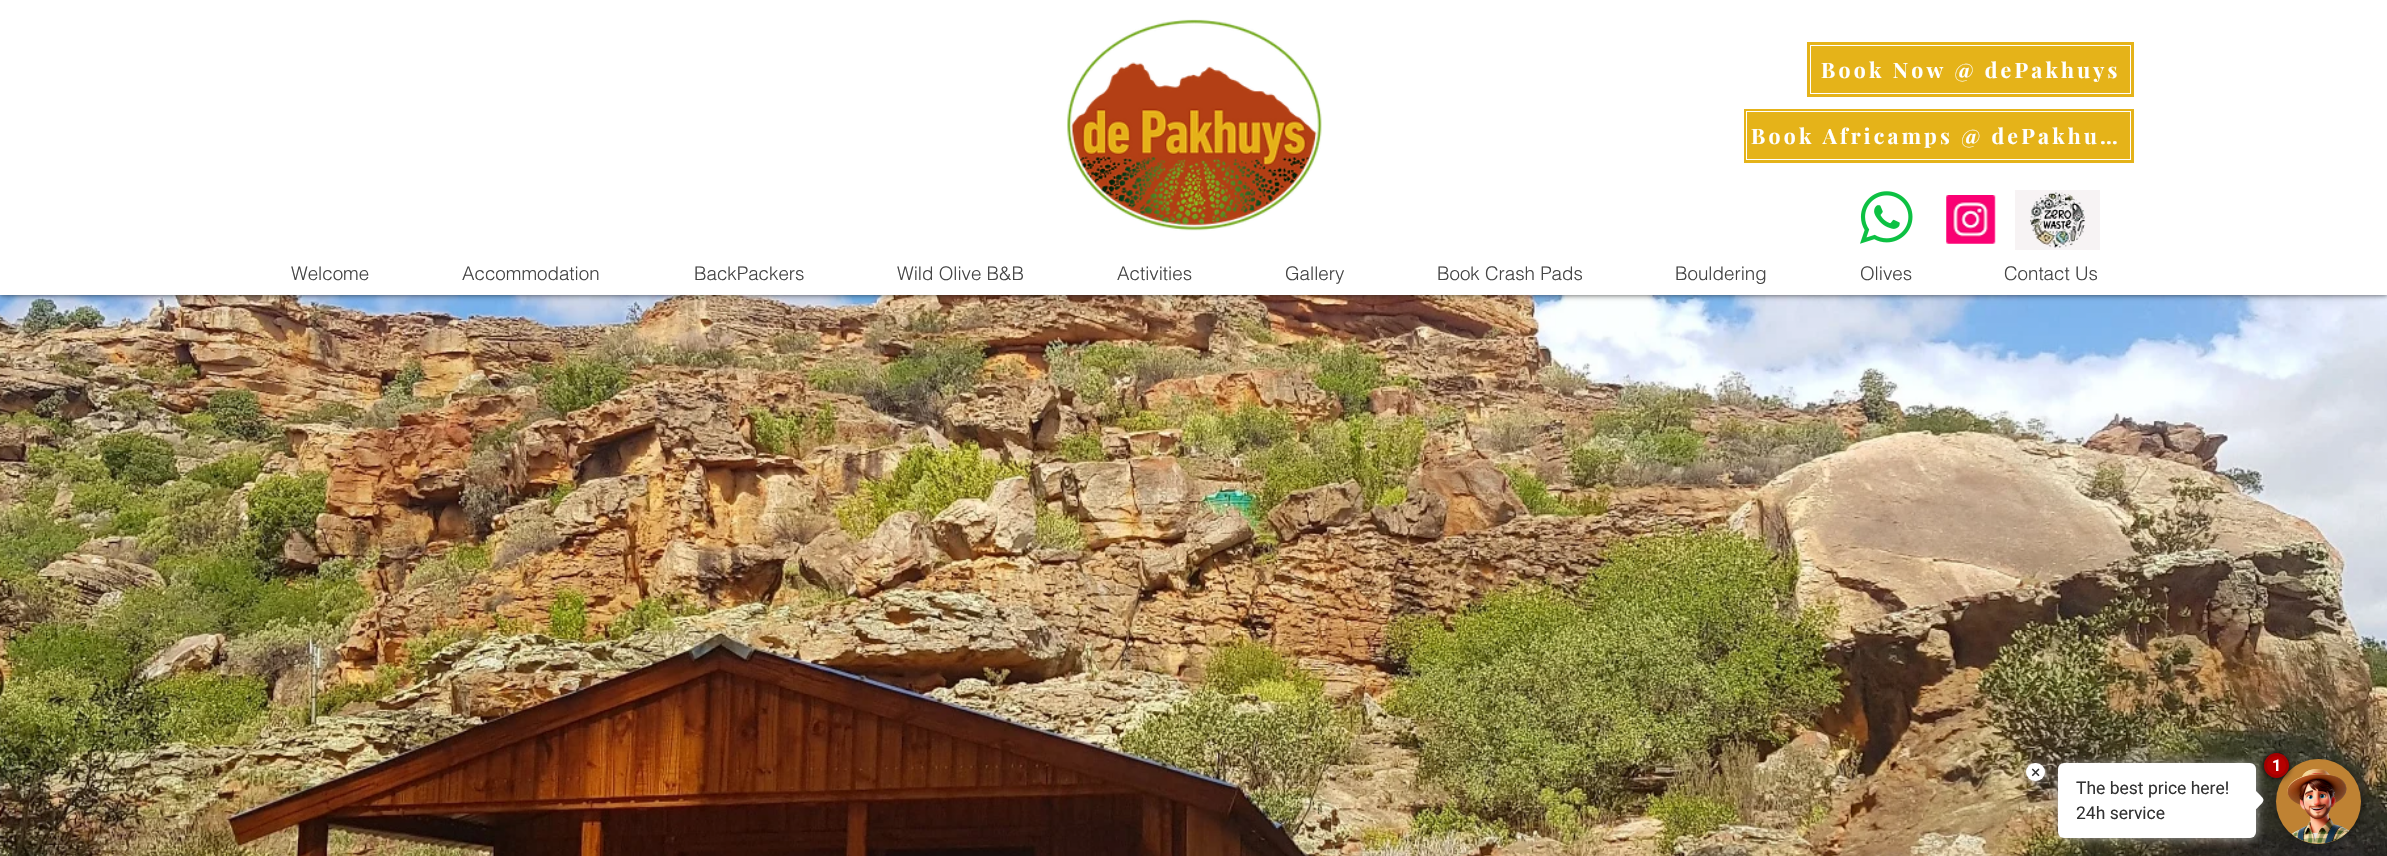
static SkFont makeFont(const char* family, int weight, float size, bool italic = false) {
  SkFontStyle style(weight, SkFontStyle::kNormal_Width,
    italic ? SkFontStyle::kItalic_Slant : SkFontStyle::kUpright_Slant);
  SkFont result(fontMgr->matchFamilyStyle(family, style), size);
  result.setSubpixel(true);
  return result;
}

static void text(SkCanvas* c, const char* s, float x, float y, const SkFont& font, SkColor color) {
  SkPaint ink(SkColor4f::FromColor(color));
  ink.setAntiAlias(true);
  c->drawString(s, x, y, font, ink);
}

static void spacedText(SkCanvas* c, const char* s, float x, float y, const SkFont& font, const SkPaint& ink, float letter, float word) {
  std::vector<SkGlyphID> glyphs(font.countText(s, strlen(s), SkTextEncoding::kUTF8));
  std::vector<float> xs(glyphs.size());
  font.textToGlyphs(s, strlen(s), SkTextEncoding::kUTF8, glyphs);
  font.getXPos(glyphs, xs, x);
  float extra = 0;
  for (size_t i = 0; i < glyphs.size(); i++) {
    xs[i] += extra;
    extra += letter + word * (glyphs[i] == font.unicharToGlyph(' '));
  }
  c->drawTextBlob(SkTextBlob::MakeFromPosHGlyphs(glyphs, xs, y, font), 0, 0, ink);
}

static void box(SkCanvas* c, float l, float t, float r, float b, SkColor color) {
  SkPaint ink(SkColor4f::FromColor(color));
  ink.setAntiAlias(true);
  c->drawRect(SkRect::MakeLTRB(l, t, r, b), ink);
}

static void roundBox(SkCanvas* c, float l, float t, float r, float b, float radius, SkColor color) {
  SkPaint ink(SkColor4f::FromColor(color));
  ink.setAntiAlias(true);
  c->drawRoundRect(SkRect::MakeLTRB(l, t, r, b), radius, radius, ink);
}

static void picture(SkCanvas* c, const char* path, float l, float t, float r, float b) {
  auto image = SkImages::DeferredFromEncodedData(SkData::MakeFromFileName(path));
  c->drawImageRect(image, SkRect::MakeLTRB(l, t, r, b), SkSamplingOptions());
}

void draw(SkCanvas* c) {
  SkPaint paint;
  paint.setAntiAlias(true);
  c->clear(0xffffffff);
  picture(c, "img_05.png", 0, 295, 2387, 856);
  paint.setColor(0xb3000000);
  paint.setMaskFilter(SkMaskFilter::MakeBlur(kNormal_SkBlurStyle, 3));
  c->drawRect(SkRect::MakeLTRB(0, 0, 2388, 295), paint);
  paint.setMaskFilter(nullptr);
  box(c, 0, 0, 2387, 295, 0xffffffff);
  picture(c, "img_01.png", 1067, 19, 1322, 231);
  box(c, 1807, 42, 2134, 97, 0xffe5b319);
  paint.setStyle(SkPaint::kStroke_Style);
  paint.setStrokeWidth(1);
  paint.setColor(0xffffffff);
  c->drawRect(SkRect::MakeLTRB(1810.5f, 45.5f, 2130.5f, 93.5f), paint);
  SkFont face1 = makeFont("Playfair Display", 700, 21.25f);
  paint.setStyle(SkPaint::kFill_Style);
  spacedText(c, "Book Now @ dePakhuys", 1821, 78, face1, paint, 3.2f, 0);
  box(c, 1744, 109, 2134, 163, 0xffe5b319);
  paint.setStyle(SkPaint::kStroke_Style);
  c->drawRect(SkRect::MakeLTRB(1746.5f, 111.5f, 2130.5f, 159.5f), paint);
  paint.setStyle(SkPaint::kFill_Style);
  spacedText(c, "Book Africamps @ dePakhu…", 1751, 144, face1, paint, 3.2f, 0);
  picture(c, "img_02.png", 1860, 191, 1913, 244);
  picture(c, "img_03.png", 1946, 195, 1996, 244);
  picture(c, "img_04.png", 2015, 190, 2100, 250);
  SkFont face2 = makeFont("helvetica", 300, 18.75f);
  text(c, "Welcome", 291, 280, face2, 0xff444444);
  text(c, "Accommodation", 462, 280, face2, 0xff444444);
  text(c, "BackPackers", 694, 280, face2, 0xff444444);
  text(c, "Wild Olive B&B", 897, 280, face2, 0xff444444);
  text(c, "Activities", 1117, 280, face2, 0xff444444);
  text(c, "Gallery", 1285, 280, face2, 0xff444444);
  text(c, "Book Crash Pads", 1437, 280, face2, 0xff444444);
  text(c, "Bouldering", 1675, 280, face2, 0xff444444);
  text(c, "Olives", 1860, 280, face2, 0xff444444);
  text(c, "Contact Us", 2004, 280, face2, 0xff444444);
  paint.setColor(0xffaaaaaa);
  paint.setMaskFilter(SkMaskFilter::MakeBlur(kNormal_SkBlurStyle, 6));
  c->drawRoundRect(SkRect::MakeLTRB(2060, 765, 2256, 838), 5, 5, paint);
  paint.setMaskFilter(nullptr);
  roundBox(c, 2058, 763, 2256, 838, 6, 0xffffffff);
  paint.setColor(0xffffffff);
  c->drawPath(SkPathBuilder().moveTo(2256, 791).cubicTo(2266, 801, 2266, 799, 2256.5f, 809).lineTo(2247.5f, 800).close().detach(), paint);
  paint.setColor(0xff000000);
  paint.setMaskFilter(SkMaskFilter::MakeBlur(kNormal_SkBlurStyle, 6));
  c->drawRoundRect(SkRect::MakeLTRB(2281, 764, 2359, 841), 38.5f, 38.5f, paint);
  paint.setMaskFilter(nullptr);
  paint.setColor(0xffbf8233);
  c->drawCircle(2318.5f, 801.5f, 42.5f, paint);
  picture(c, "img_06.png", 2287, 769, 2350, 844);
  paint.setColor(0xff000000);
  paint.setMaskFilter(SkMaskFilter::MakeBlur(kNormal_SkBlurStyle, 3));
  c->drawRoundRect(SkRect::MakeLTRB(2264, 753, 2289, 778), 12.5f, 12.5f, paint);
  paint.setMaskFilter(nullptr);
  paint.setColor(0xffb60000);
  c->drawCircle(2276.5f, 765.5f, 11, paint);
  paint.setStyle(SkPaint::kStroke_Style);
  paint.setStrokeWidth(3);
  paint.setColor(0xffa30000);
  c->drawCircle(2276.5f, 765.5f, 11, paint);
  SkFont face3 = makeFont("Roboto", 700, 16);
  text(c, "1", 2272, 771, face3, 0xffffffff);
  paint.setStyle(SkPaint::kFill_Style);
  paint.setColor(0xffaaaaaa);
  paint.setMaskFilter(SkMaskFilter::MakeBlur(kNormal_SkBlurStyle, 6));
  c->drawRoundRect(SkRect::MakeLTRB(2029, 765, 2045, 781), 8, 8, paint);
  paint.setMaskFilter(nullptr);
  roundBox(c, 2026, 763, 2045, 781, 9, 0xffffffff);
  SkFont face4 = makeFont("Roboto", 400, 17.5f);
  text(c, "×", 2031, 778, face4, 0xff333333);
  text(c, "The best price here!", 2076, 794, face4, 0xff333333);
  text(c, "24h service", 2076, 819, face4, 0xff333333);
}
